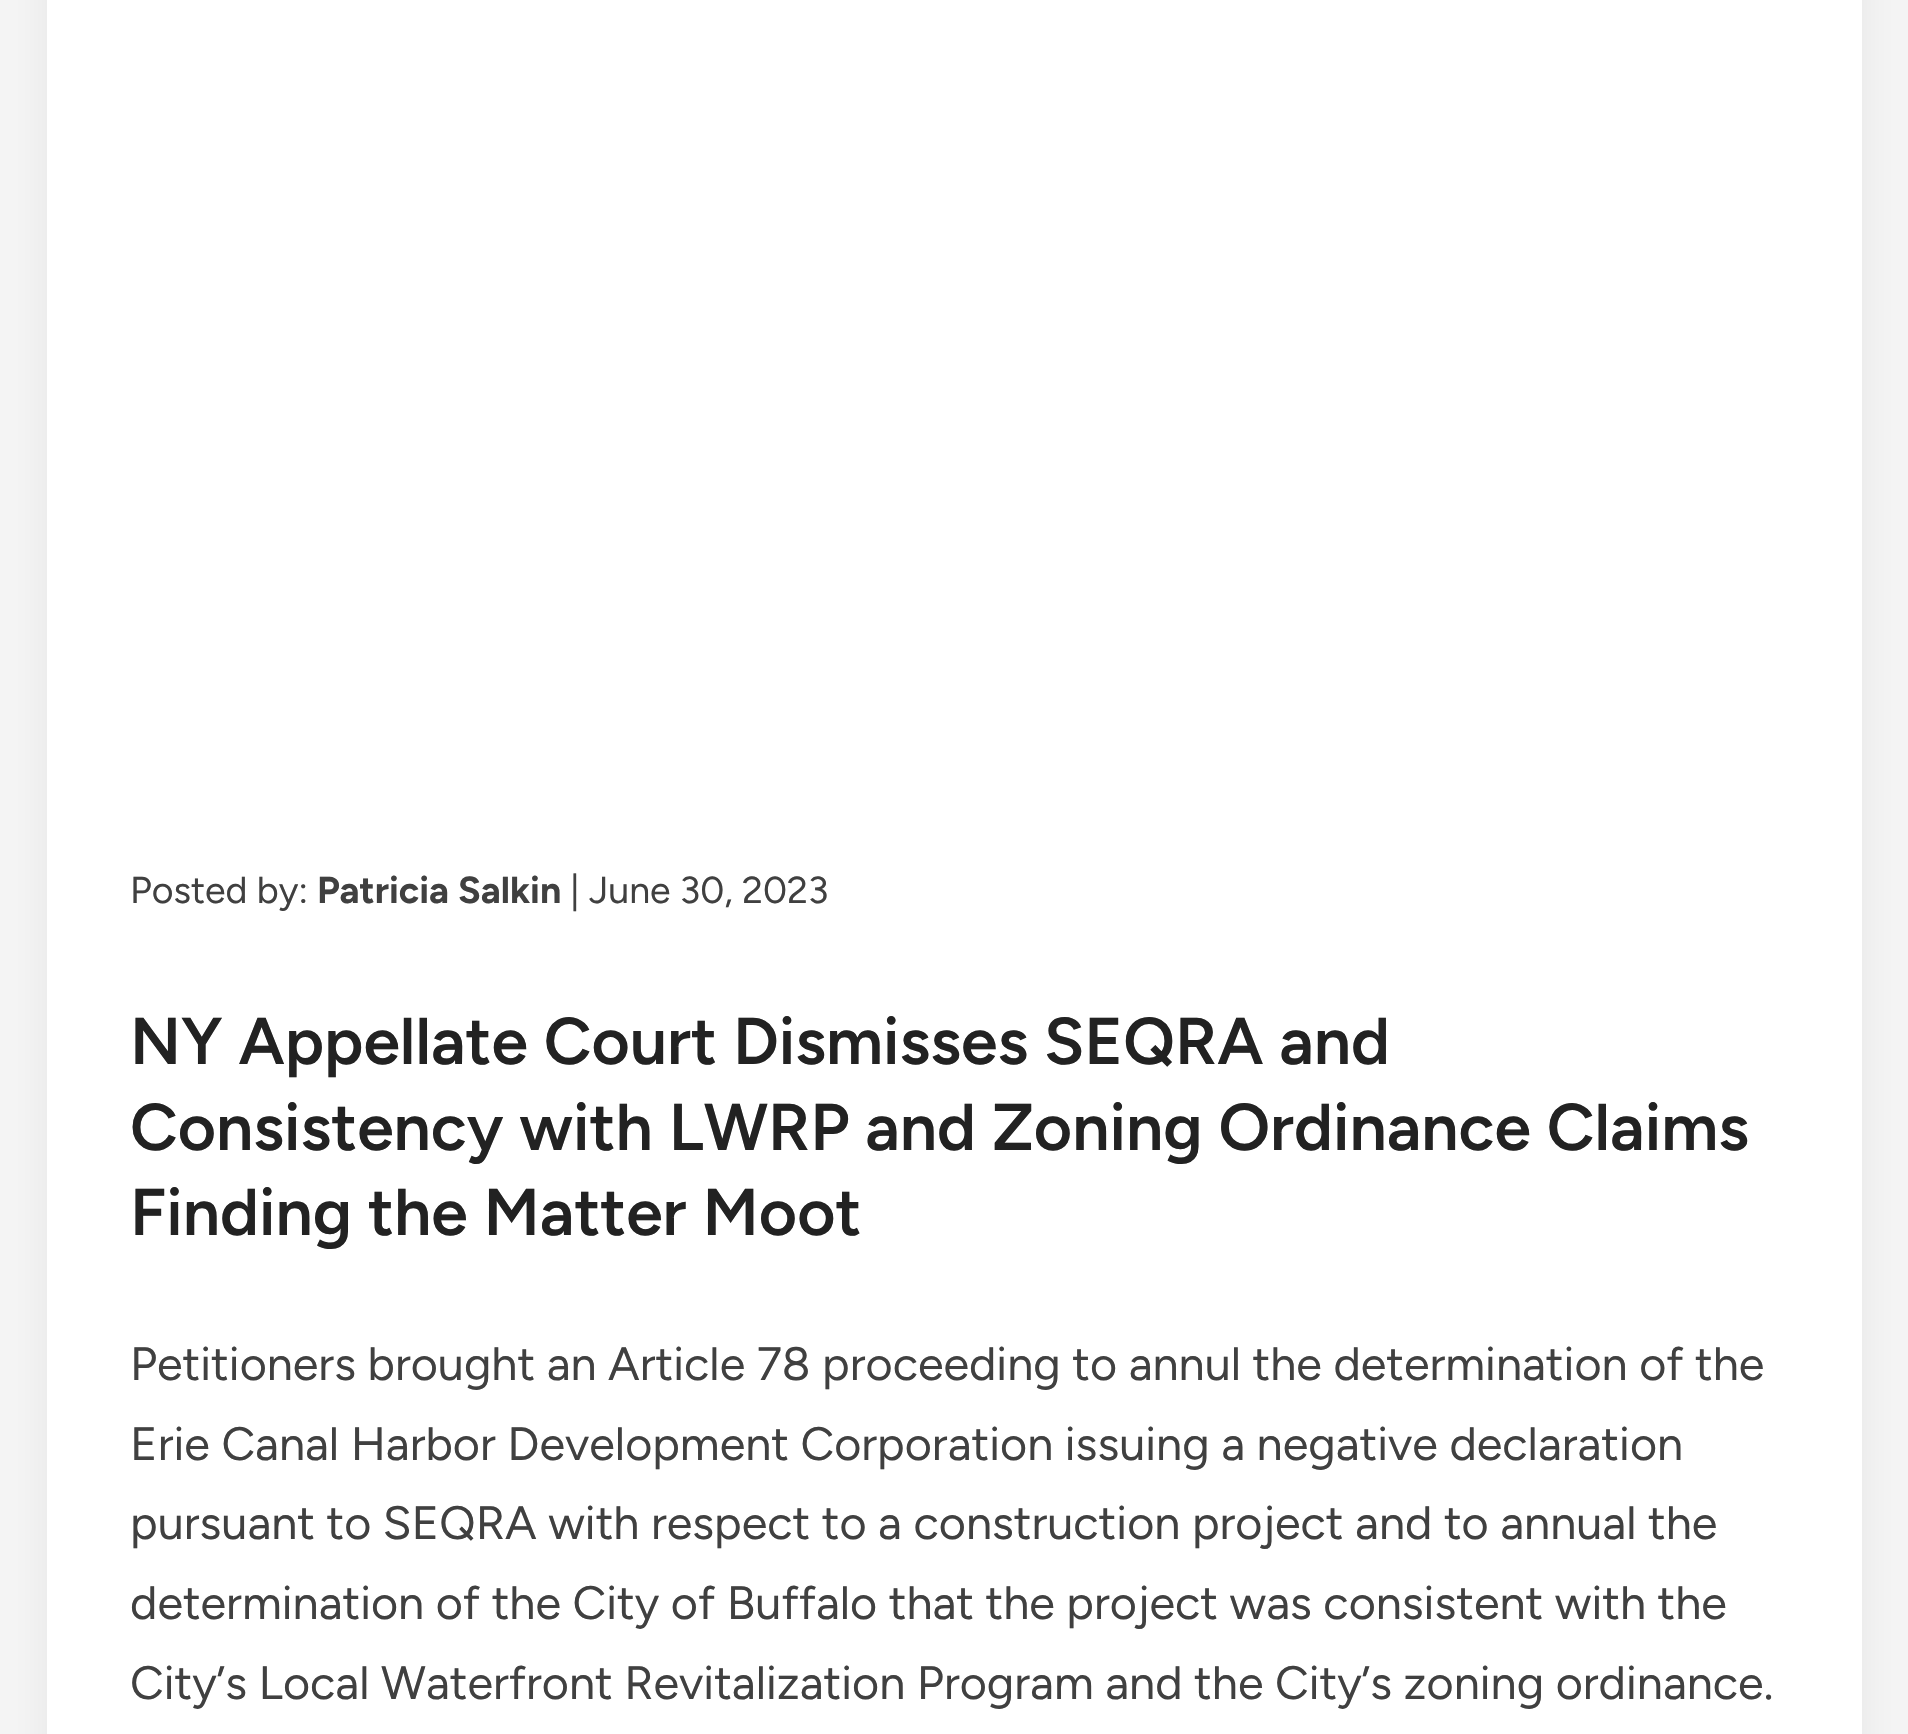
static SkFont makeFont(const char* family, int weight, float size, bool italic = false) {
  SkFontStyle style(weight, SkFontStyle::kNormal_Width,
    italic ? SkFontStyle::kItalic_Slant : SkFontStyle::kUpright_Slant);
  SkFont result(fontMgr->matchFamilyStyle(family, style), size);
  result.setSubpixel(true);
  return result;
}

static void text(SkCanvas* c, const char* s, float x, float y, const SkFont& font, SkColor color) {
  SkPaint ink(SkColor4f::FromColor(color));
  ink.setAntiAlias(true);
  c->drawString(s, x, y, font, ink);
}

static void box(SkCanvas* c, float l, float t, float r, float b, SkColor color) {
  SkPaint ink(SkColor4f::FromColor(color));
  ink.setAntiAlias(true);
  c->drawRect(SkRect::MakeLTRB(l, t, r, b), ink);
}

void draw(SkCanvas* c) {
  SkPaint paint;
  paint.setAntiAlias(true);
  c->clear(0xfff5f5f5);
  paint.setColor(0x0f000000);
  paint.setMaskFilter(SkMaskFilter::MakeBlur(kNormal_SkBlurStyle, 20.5f));
  c->drawRoundRect(SkRect::MakeLTRB(47, -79, 1862, 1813), 17, 17, paint);
  paint.setMaskFilter(nullptr);
  box(c, 47, 0, 1862, 1734, 0xffffffff);
  SkFont face1 = makeFont("Figtree", 400, 37.5f);
  text(c, "Posted by:", 130, 903, face1, 0xff404040);
  SkFont face2 = makeFont("Figtree", 700, 37.5f);
  text(c, "Patricia Salkin", 317, 903, face2, 0xff404040);
  text(c, "| June 30, 2023", 570, 903, face1, 0xff404040);
  SkFont face3 = makeFont("Figtree", 600, 66);
  text(c, "NY Appellate Court Dismisses SEQRA and", 130, 1064, face3, 0xff222222);
  text(c, "Consistency with LWRP and Zoning Ordinance Claims", 130, 1150, face3, 0xff222222);
  text(c, "Finding the Matter Moot", 130, 1235, face3, 0xff222222);
  SkFont face4 = makeFont("Figtree", 400, 46.75f);
  text(c, "Petitioners brought an Article 78 proceeding to annul the determination of the", 130, 1380, face4, 0xff404040);
  text(c, "Erie Canal Harbor Development Corporation issuing a negative declaration", 130, 1460, face4, 0xff404040);
  text(c, "pursuant to SEQRA with respect to a construction project and to annual the", 130, 1539, face4, 0xff404040);
  text(c, "determination of the City of Buffalo that the project was consistent with the", 130, 1619, face4, 0xff404040);
  text(c, "City’s Local Waterfront Revitalization Program and the City’s zoning ordinance.", 130, 1699, face4, 0xff404040);
}
